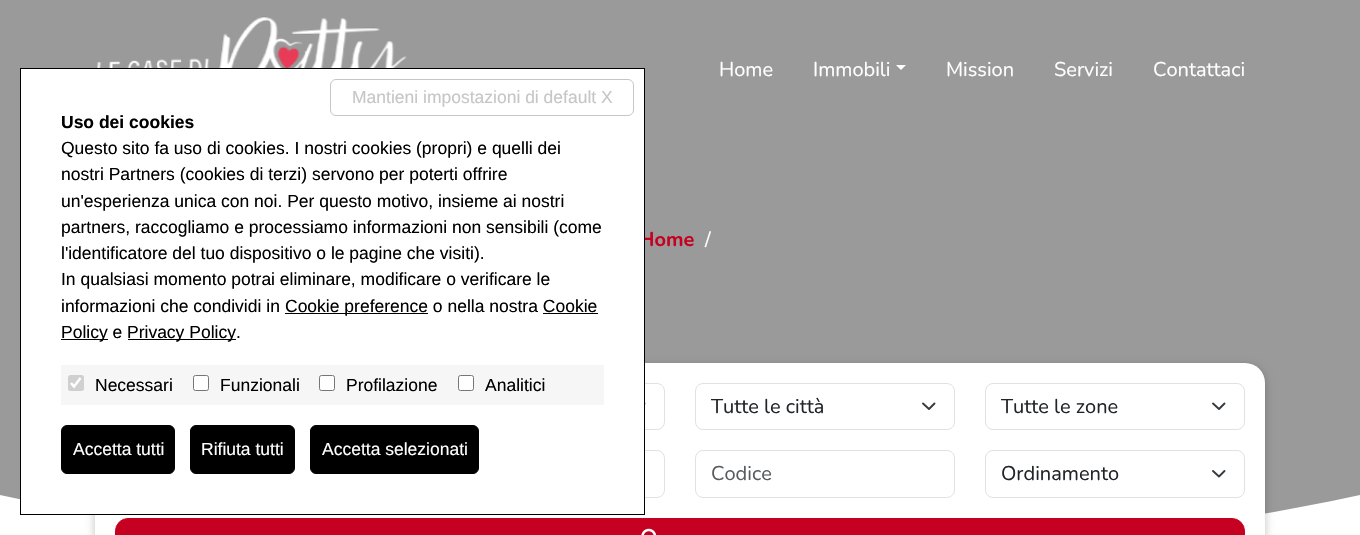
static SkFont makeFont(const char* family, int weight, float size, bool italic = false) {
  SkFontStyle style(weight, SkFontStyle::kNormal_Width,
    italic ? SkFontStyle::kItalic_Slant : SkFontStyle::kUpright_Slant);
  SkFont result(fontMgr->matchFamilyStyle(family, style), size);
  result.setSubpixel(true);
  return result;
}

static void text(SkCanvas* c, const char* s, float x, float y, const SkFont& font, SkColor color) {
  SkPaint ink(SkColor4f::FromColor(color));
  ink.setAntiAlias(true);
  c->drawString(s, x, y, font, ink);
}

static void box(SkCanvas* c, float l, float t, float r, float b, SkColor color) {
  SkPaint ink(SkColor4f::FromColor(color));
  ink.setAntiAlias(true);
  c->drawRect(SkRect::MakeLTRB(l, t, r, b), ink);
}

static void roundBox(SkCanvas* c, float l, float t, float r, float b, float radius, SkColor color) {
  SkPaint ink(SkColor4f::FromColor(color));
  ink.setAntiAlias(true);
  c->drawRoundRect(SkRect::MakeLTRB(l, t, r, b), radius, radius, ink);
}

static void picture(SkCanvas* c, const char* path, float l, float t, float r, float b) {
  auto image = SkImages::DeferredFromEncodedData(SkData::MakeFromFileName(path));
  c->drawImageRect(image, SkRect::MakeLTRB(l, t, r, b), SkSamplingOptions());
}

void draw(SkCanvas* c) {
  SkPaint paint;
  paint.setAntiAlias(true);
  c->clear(0xffffffff);
  paint.setColor(0xff9a9a9a);
  c->drawPath(SkPathBuilder().moveTo(0, 0).lineTo(1360, 0).lineTo(1360, 495).cubicTo(1160, 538, 928, 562, 680, 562).cubicTo(432, 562, 200, 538, 0, 495).close().detach(), paint);
  picture(c, "img_01.png", 97, 16, 407, 68);
  SkFont face1 = makeFont("Nunito", 400, 20);
  text(c, "Home", 719, 76, face1, 0xffffffff);
  text(c, "Immobili", 813, 76, face1, 0xffffffff);
  paint.setColor(0xffffffff);
  c->drawPath(SkPathBuilder().moveTo(896, 65).lineTo(906, 65).lineTo(901, 70).close().detach(), paint);
  text(c, "Mission", 946, 76, face1, 0xffffffff);
  text(c, "Servizi", 1054, 76, face1, 0xffffffff);
  text(c, "Contattaci", 1153, 76, face1, 0xffffffff);
  SkFont face2 = makeFont("Nunito", 700, 20);
  text(c, "Home", 639, 246, face2, 0xffc50020);
  paint.setColor(0x3d000000);
  paint.setMaskFilter(SkMaskFilter::MakeBlur(kNormal_SkBlurStyle, 5));
  c->drawRoundRect(SkRect::MakeLTRB(95, 366, 1265, 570), 20, 20, paint);
  paint.setMaskFilter(nullptr);
  roundBox(c, 95, 363, 1265, 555, 20, 0xffffffff);
  paint.setStyle(SkPaint::kStroke_Style);
  paint.setStrokeWidth(1.9f);
  paint.setStrokeCap(SkPaint::kRound_Cap);
  paint.setStrokeJoin(SkPaint::kRound_Join);
  paint.setColor(0xff343a40);
  c->drawPath(SkPathBuilder().moveTo(633, 403.5f).lineTo(639, 409).lineTo(644.5f, 403.5f).detach(), paint);
  paint.setStrokeWidth(1);
  paint.setStrokeCap(SkPaint::kButt_Cap);
  paint.setStrokeJoin(SkPaint::kMiter_Join);
  paint.setColor(0xffdee2e6);
  c->drawRoundRect(SkRect::MakeLTRB(405.5f, 383.5f, 664.5f, 429.5f), 7.5f, 7.5f, paint);
  c->drawRoundRect(SkRect::MakeLTRB(535.5f, 450.5f, 664.5f, 497.5f), 7.5f, 7.5f, paint);
  paint.setStyle(SkPaint::kFill_Style);
  paint.setColor(0xffffffff);
  c->drawRect(SkRect::MakeLTRB(20.5f, 68.5f, 644.5f, 514.5f), paint);
  paint.setStyle(SkPaint::kStroke_Style);
  paint.setColor(0xff000000);
  c->drawRect(SkRect::MakeLTRB(20.5f, 68.5f, 644.5f, 514.5f), paint);
  paint.setColor(0xffc6c6c6);
  c->drawRoundRect(SkRect::MakeLTRB(330.5f, 79.5f, 633.5f, 115.5f), 5.5f, 5.5f, paint);
  SkFont face3 = makeFont("Liberation Sans", 400, 17.5f);
  text(c, "Mantieni impostazioni di default X", 352, 103, face3, 0xffc6c6c6);
  SkFont face4 = makeFont("Liberation Sans", 700, 17.5f);
  text(c, "Uso dei cookies", 61, 128, face4, 0xff000000);
  text(c, "Questo sito fa uso di cookies. I nostri cookies (propri) e quelli dei", 61, 154, face3, 0xff000000);
  text(c, "nostri Partners (cookies di terzi) servono per poterti offrire", 61, 180, face3, 0xff000000);
  text(c, "un'esperienza unica con noi. Per questo motivo, insieme ai nostri", 61, 207, face3, 0xff000000);
  text(c, "partners, raccogliamo e processiamo informazioni non sensibili (come", 61, 233, face3, 0xff000000);
  text(c, "l'identificatore del tuo dispositivo o le pagine che visiti).", 61, 259, face3, 0xff000000);
  text(c, "In qualsiasi momento potrai eliminare, modificare o verificare le", 61, 285, face3, 0xff000000);
  text(c, "informazioni che condividi in", 61, 312, face3, 0xff000000);
  box(c, 285, 313, 428, 314, 0xff000000);
  text(c, "Cookie preference o nella nostra Cookie", 285, 312, face3, 0xff000000);
  box(c, 61, 339, 108, 340, 0xff000000);
  text(c, "Policy e", 61, 338, face3, 0xff000000);
  box(c, 543, 313, 598, 314, 0xff000000);
  box(c, 128, 339, 236, 340, 0xff000000);
  text(c, "Privacy Policy.", 127, 338, face3, 0xff000000);
  box(c, 61, 365, 604, 405, 0xfff6f6f6);
  roundBox(c, 68, 375, 84, 391, 2.5f, 0xffd0d0d0);
  paint.setStrokeWidth(2.6f);
  paint.setColor(0xffffffff);
  c->drawPath(SkPathBuilder().moveTo(71, 383).lineTo(74, 386.5f).lineTo(80.5f, 378).detach(), paint);
  text(c, "Necessari", 95, 391, face3, 0xff000000);
  paint.setStyle(SkPaint::kFill_Style);
  c->drawRoundRect(SkRect::MakeLTRB(193.5f, 375.5f, 208.5f, 390.5f), 2, 2, paint);
  paint.setStyle(SkPaint::kStroke_Style);
  paint.setStrokeWidth(1);
  paint.setColor(0xff767676);
  c->drawRoundRect(SkRect::MakeLTRB(193.5f, 375.5f, 208.5f, 390.5f), 2, 2, paint);
  text(c, "Funzionali", 220, 391, face3, 0xff000000);
  paint.setStyle(SkPaint::kFill_Style);
  paint.setColor(0xffffffff);
  c->drawRoundRect(SkRect::MakeLTRB(319.5f, 375.5f, 334.5f, 390.5f), 2, 2, paint);
  paint.setStyle(SkPaint::kStroke_Style);
  paint.setColor(0xff767676);
  c->drawRoundRect(SkRect::MakeLTRB(319.5f, 375.5f, 334.5f, 390.5f), 2, 2, paint);
  text(c, "Profilazione", 346, 391, face3, 0xff000000);
  paint.setStyle(SkPaint::kFill_Style);
  paint.setColor(0xffffffff);
  c->drawRoundRect(SkRect::MakeLTRB(458.5f, 375.5f, 473.5f, 390.5f), 2, 2, paint);
  paint.setStyle(SkPaint::kStroke_Style);
  paint.setColor(0xff767676);
  c->drawRoundRect(SkRect::MakeLTRB(458.5f, 375.5f, 473.5f, 390.5f), 2, 2, paint);
  text(c, "Analitici", 485, 391, face3, 0xff000000);
  paint.setStyle(SkPaint::kFill_Style);
  paint.setColor(0xff000000);
  c->drawRoundRect(SkRect::MakeLTRB(61.5f, 425.5f, 174.5f, 473.5f), 5.5f, 5.5f, paint);
  paint.setStyle(SkPaint::kStroke_Style);
  c->drawRoundRect(SkRect::MakeLTRB(61.5f, 425.5f, 174.5f, 473.5f), 5.5f, 5.5f, paint);
  text(c, "Accetta tutti", 73, 455, face3, 0xffffffff);
  paint.setStyle(SkPaint::kFill_Style);
  c->drawRoundRect(SkRect::MakeLTRB(190.5f, 425.5f, 294.5f, 473.5f), 5.5f, 5.5f, paint);
  paint.setStyle(SkPaint::kStroke_Style);
  c->drawRoundRect(SkRect::MakeLTRB(190.5f, 425.5f, 294.5f, 473.5f), 5.5f, 5.5f, paint);
  text(c, "Rifiuta tutti", 201, 455, face3, 0xffffffff);
  paint.setStyle(SkPaint::kFill_Style);
  c->drawRoundRect(SkRect::MakeLTRB(310.5f, 425.5f, 478.5f, 473.5f), 5.5f, 5.5f, paint);
  paint.setStyle(SkPaint::kStroke_Style);
  c->drawRoundRect(SkRect::MakeLTRB(310.5f, 425.5f, 478.5f, 473.5f), 5.5f, 5.5f, paint);
  text(c, "Accetta selezionati", 322, 455, face3, 0xffffffff);
  text(c, "/", 705, 246, face1, 0xffffffff);
  paint.setStrokeWidth(1.9f);
  paint.setStrokeCap(SkPaint::kRound_Cap);
  paint.setStrokeJoin(SkPaint::kRound_Join);
  paint.setColor(0xff343a40);
  c->drawPath(SkPathBuilder().moveTo(923, 403.5f).lineTo(929, 409).lineTo(934.5f, 403.5f).detach(), paint);
  paint.setStrokeWidth(1);
  paint.setStrokeCap(SkPaint::kButt_Cap);
  paint.setStrokeJoin(SkPaint::kMiter_Join);
  paint.setColor(0xffdee2e6);
  c->drawRoundRect(SkRect::MakeLTRB(695.5f, 383.5f, 954.5f, 429.5f), 7.5f, 7.5f, paint);
  text(c, "Tutte le città", 711, 413, face1, 0xff212529);
  paint.setStrokeWidth(1.9f);
  paint.setStrokeCap(SkPaint::kRound_Cap);
  paint.setStrokeJoin(SkPaint::kRound_Join);
  paint.setColor(0xff343a40);
  c->drawPath(SkPathBuilder().moveTo(1213, 403.5f).lineTo(1219, 409).lineTo(1224.5f, 403.5f).detach(), paint);
  paint.setStrokeWidth(1);
  paint.setStrokeCap(SkPaint::kButt_Cap);
  paint.setStrokeJoin(SkPaint::kMiter_Join);
  paint.setColor(0xffdee2e6);
  c->drawRoundRect(SkRect::MakeLTRB(985.5f, 383.5f, 1244.5f, 429.5f), 7.5f, 7.5f, paint);
  text(c, "Tutte le zone", 1001, 413, face1, 0xff212529);
  c->drawRoundRect(SkRect::MakeLTRB(695.5f, 450.5f, 954.5f, 497.5f), 7.5f, 7.5f, paint);
  text(c, "Codice", 711, 480, face1, 0xff595c5f);
  paint.setStrokeWidth(1.9f);
  paint.setStrokeCap(SkPaint::kRound_Cap);
  paint.setStrokeJoin(SkPaint::kRound_Join);
  paint.setColor(0xff343a40);
  c->drawPath(SkPathBuilder().moveTo(1213, 471).lineTo(1219, 476.5f).lineTo(1224.5f, 471).detach(), paint);
  paint.setStrokeWidth(1);
  paint.setStrokeCap(SkPaint::kButt_Cap);
  paint.setStrokeJoin(SkPaint::kMiter_Join);
  paint.setColor(0xffdee2e6);
  c->drawRoundRect(SkRect::MakeLTRB(985.5f, 450.5f, 1244.5f, 497.5f), 7.5f, 7.5f, paint);
  text(c, "Ordinamento", 1001, 480, face1, 0xff212529);
  paint.setStyle(SkPaint::kFill_Style);
  paint.setColor(0xffc50020);
  c->drawRoundRect(SkRect::MakeLTRB(115.5f, 518.5f, 1244.5f, 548.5f), 12.5f, 12.5f, paint);
  paint.setStyle(SkPaint::kStroke_Style);
  c->drawRoundRect(SkRect::MakeLTRB(115.5f, 518.5f, 1244.5f, 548.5f), 12.5f, 12.5f, paint);
  picture(c, "img_02.png", 641, 528, 657, 535);
}
